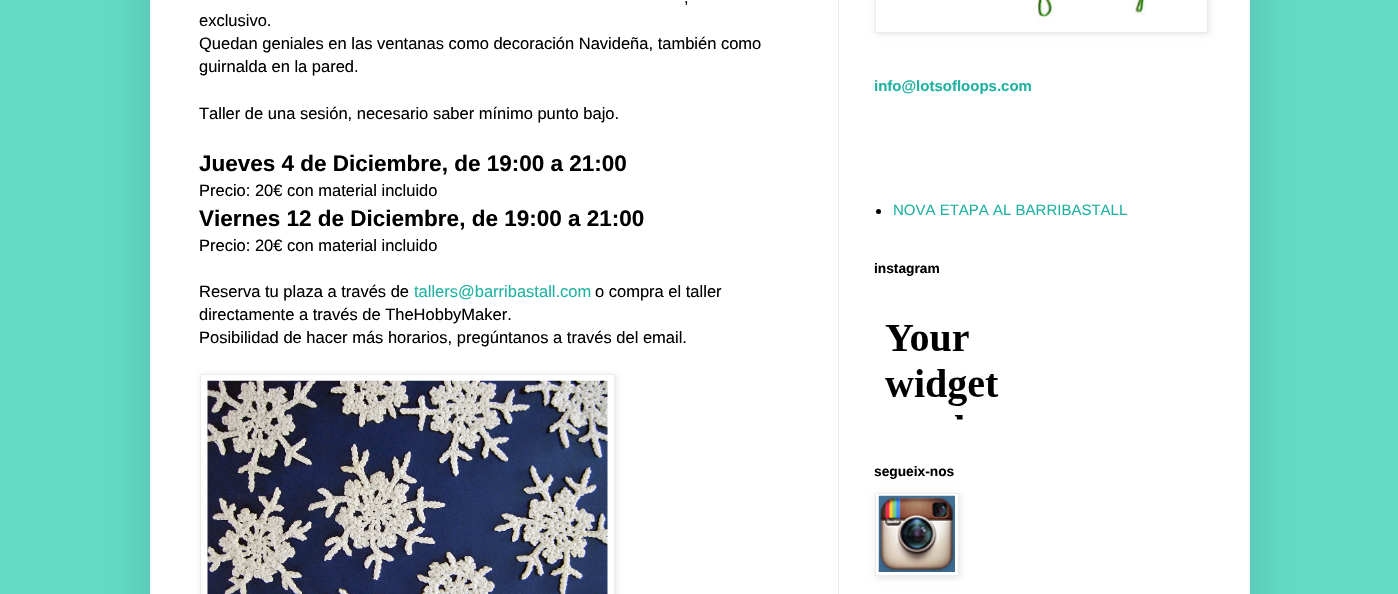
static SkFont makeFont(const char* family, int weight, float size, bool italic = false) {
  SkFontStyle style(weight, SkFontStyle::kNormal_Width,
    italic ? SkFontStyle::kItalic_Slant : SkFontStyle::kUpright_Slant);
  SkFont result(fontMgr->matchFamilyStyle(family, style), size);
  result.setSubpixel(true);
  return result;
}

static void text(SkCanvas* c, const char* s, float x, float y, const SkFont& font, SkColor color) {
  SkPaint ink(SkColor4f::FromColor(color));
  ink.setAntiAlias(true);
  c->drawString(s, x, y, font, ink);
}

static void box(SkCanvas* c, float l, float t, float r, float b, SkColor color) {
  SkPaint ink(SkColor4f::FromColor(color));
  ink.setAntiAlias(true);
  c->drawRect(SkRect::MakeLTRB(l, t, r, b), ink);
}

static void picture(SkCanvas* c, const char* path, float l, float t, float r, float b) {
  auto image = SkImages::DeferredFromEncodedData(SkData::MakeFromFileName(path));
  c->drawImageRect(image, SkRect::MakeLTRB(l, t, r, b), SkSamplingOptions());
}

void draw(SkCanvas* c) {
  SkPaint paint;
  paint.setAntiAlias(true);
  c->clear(0xff62dcc7);
  paint.setColor(0x26000000);
  paint.setMaskFilter(SkMaskFilter::MakeBlur(kNormal_SkBlurStyle, 25));
  c->drawRect(SkRect::MakeLTRB(150, -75, 1250, 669), paint);
  paint.setMaskFilter(nullptr);
  box(c, 150, 0, 1250, 594, 0xffffffff);
  box(c, 838, 0, 839, 594, 0xffececec);
  SkFont face1 = makeFont("Liberation Sans", 400, 16.5f);
  text(c, ",", 684, 3, face1, 0xff000000);
  text(c, "exclusivo.", 199, 26, face1, 0xff000000);
  text(c, "Quedan geniales en las ventanas como decoración Navideña, también como", 199, 49, face1, 0xff000000);
  text(c, "guirnalda en la pared.", 199, 72, face1, 0xff000000);
  text(c, "Taller de una sesión, necesario saber mínimo punto bajo.", 199, 119, face1, 0xff000000);
  SkFont face2 = makeFont("Liberation Sans", 700, 22.5f);
  text(c, "Jueves 4 de Diciembre, de 19:00 a 21:00", 199, 171, face2, 0xff000000);
  text(c, "Precio: 20€ con material incluido", 199, 196, face1, 0xff000000);
  text(c, "Viernes 12 de Diciembre, de 19:00 a 21:00", 199, 226, face2, 0xff000000);
  text(c, "Precio: 20€ con material incluido", 199, 251, face1, 0xff000000);
  text(c, "Reserva tu plaza a través de", 199, 297, face1, 0xff000000);
  text(c, "tallers@barribastall.com", 414, 297, face1, 0xff20b2a1);
  text(c, "o compra el taller", 595, 297, face1, 0xff000000);
  text(c, "directamente a través de TheHobbyMaker.", 199, 320, face1, 0xff000000);
  text(c, "Posibilidad de hacer más horarios, pregúntanos a través del email.", 199, 343, face1, 0xff000000);
  c->save();
  c->clipPath(SkPathBuilder(SkPathFillType::kEvenOdd).moveTo(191, 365).lineTo(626, 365).lineTo(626, 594).lineTo(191, 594).close().moveTo(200, 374).lineTo(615, 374).lineTo(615, 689).lineTo(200, 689).close().detach(), true);
  paint.setColor(0x1a000000);
  paint.setMaskFilter(SkMaskFilter::MakeBlur(kNormal_SkBlurStyle, 3));
  c->drawRect(SkRect::MakeLTRB(201, 375, 616, 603), paint);
  paint.setMaskFilter(nullptr);
  c->restore();
  paint.setStyle(SkPaint::kStroke_Style);
  paint.setStrokeWidth(1);
  paint.setColor(0xffececec);
  c->drawRect(SkRect::MakeLTRB(200.5f, 374.5f, 614.5f, 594.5f), paint);
  picture(c, "img_01.png", 207, 380, 608, 594);
  paint.setStyle(SkPaint::kFill_Style);
  paint.setColor(0x1a000000);
  paint.setMaskFilter(SkMaskFilter::MakeBlur(kNormal_SkBlurStyle, 3));
  c->drawRect(SkRect::MakeLTRB(876, -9, 1209, 34), paint);
  paint.setMaskFilter(nullptr);
  paint.setColor(0xffffffff);
  c->drawRect(SkRect::MakeLTRB(875.5f, -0.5f, 1207.5f, 32.5f), paint);
  paint.setStyle(SkPaint::kStroke_Style);
  paint.setColor(0xffececec);
  c->drawRect(SkRect::MakeLTRB(875.5f, -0.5f, 1207.5f, 32.5f), paint);
  picture(c, "img_02.png", 1034, 0, 1147, 23);
  SkFont face3 = makeFont("Liberation Sans", 700, 15);
  text(c, "info@lotsofloops.com", 874, 91, face3, 0xff20b2a1);
  paint.setStyle(SkPaint::kFill_Style);
  paint.setColor(0xff000000);
  c->drawCircle(878.5f, 211.5f, 2.5f, paint);
  SkFont face4 = makeFont("Liberation Sans", 400, 15);
  text(c, "NOVA ETAPA AL BARRIBASTALL", 893, 215, face4, 0xff20b2a1);
  SkFont face5 = makeFont("Liberation Sans", 700, 13.75f);
  text(c, "instagram", 874, 273, face5, 0xff000000);
  picture(c, "img_03.png", 885, 325, 999, 420);
  text(c, "segueix-nos", 874, 476, face5, 0xff000000);
  paint.setColor(0x1a000000);
  paint.setMaskFilter(SkMaskFilter::MakeBlur(kNormal_SkBlurStyle, 3));
  c->drawRect(SkRect::MakeLTRB(876, 494, 960, 578), paint);
  paint.setMaskFilter(nullptr);
  paint.setColor(0xffffffff);
  c->drawRect(SkRect::MakeLTRB(875.5f, 493.5f, 958.5f, 575.5f), paint);
  paint.setStyle(SkPaint::kStroke_Style);
  paint.setColor(0xffececec);
  c->drawRect(SkRect::MakeLTRB(875.5f, 493.5f, 958.5f, 575.5f), paint);
  picture(c, "img_04.png", 878, 495, 955, 572);
}
